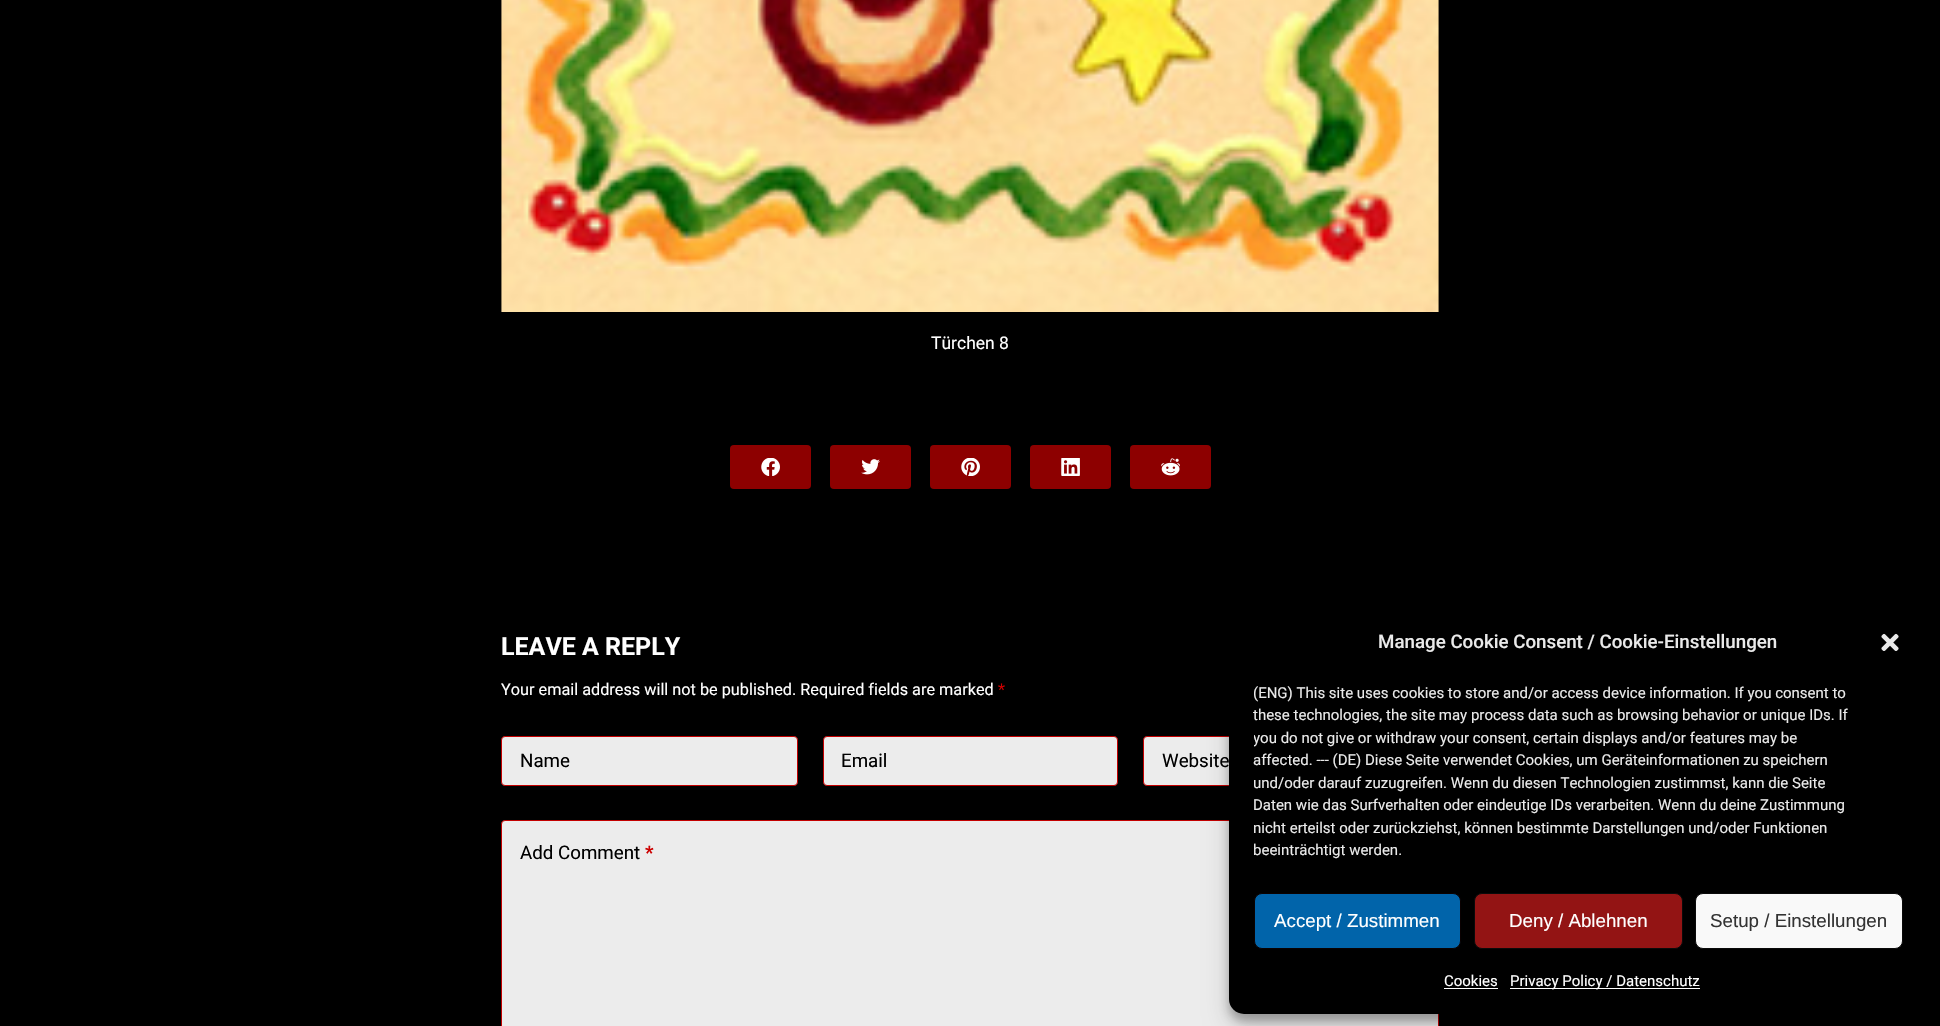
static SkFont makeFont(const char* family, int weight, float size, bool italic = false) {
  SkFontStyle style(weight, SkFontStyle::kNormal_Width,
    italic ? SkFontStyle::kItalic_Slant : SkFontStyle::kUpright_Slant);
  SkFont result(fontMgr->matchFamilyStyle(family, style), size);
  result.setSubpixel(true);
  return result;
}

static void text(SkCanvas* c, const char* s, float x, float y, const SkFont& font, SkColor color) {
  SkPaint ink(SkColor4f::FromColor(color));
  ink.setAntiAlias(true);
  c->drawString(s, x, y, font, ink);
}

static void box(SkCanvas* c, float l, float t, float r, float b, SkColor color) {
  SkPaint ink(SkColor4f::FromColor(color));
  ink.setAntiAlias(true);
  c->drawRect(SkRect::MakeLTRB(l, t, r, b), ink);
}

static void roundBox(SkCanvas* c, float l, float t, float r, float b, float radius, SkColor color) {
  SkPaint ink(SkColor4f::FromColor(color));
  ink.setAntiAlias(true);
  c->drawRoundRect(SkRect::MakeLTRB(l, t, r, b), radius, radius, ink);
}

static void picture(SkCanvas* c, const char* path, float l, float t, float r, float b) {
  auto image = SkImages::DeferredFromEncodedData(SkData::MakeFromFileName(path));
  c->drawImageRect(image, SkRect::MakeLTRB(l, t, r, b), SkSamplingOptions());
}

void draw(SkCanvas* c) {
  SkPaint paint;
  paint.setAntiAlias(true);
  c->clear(0xff000000);
  picture(c, "img_01.png", 501, 0, 1439, 312);
  SkFont face1 = makeFont("Roboto", 400, 17.5f);
  text(c, "Türchen 8", 931, 349, face1, 0xffffffff);
  roundBox(c, 730, 445, 811, 489, 4, 0xff8d0000);
  picture(c, "img_02.png", 761, 458, 780, 476);
  roundBox(c, 830, 445, 911, 489, 4, 0xff8d0000);
  picture(c, "img_03.png", 861, 459, 880, 475);
  roundBox(c, 930, 445, 1011, 489, 4, 0xff8d0000);
  picture(c, "img_04.png", 961, 458, 980, 476);
  roundBox(c, 1030, 445, 1111, 489, 4, 0xff8d0000);
  picture(c, "img_05.png", 1061, 458, 1080, 476);
  roundBox(c, 1130, 445, 1211, 489, 4, 0xff8d0000);
  picture(c, "img_06.png", 1161, 458, 1180, 476);
  SkFont face2 = makeFont("Roboto", 700, 25);
  text(c, "LEAVE A REPLY", 501, 655, face2, 0xffffffff);
  SkFont face3 = makeFont("Roboto", 400, 16.25f);
  text(c, "Your email address will not be published. Required fields are marked", 501, 695, face3, 0xffffffff);
  text(c, "*", 998, 695, face3, 0xffcc0000);
  paint.setColor(0xffececec);
  c->drawRoundRect(SkRect::MakeLTRB(501.5f, 736.5f, 797.5f, 785.5f), 3.5f, 3.5f, paint);
  paint.setStyle(SkPaint::kStroke_Style);
  paint.setStrokeWidth(1);
  paint.setColor(0xffc30000);
  c->drawRoundRect(SkRect::MakeLTRB(501.5f, 736.5f, 797.5f, 785.5f), 3.5f, 3.5f, paint);
  SkFont face4 = makeFont("Roboto", 400, 18.75f);
  text(c, "Name", 520, 767, face4, 0xff000000);
  paint.setStyle(SkPaint::kFill_Style);
  paint.setColor(0xffececec);
  c->drawRoundRect(SkRect::MakeLTRB(823.5f, 736.5f, 1117.5f, 785.5f), 3.5f, 3.5f, paint);
  paint.setStyle(SkPaint::kStroke_Style);
  paint.setColor(0xffc30000);
  c->drawRoundRect(SkRect::MakeLTRB(823.5f, 736.5f, 1117.5f, 785.5f), 3.5f, 3.5f, paint);
  text(c, "Email", 841, 767, face4, 0xff000000);
  paint.setStyle(SkPaint::kFill_Style);
  paint.setColor(0xffececec);
  c->drawRoundRect(SkRect::MakeLTRB(1143.5f, 736.5f, 1438.5f, 785.5f), 3.5f, 3.5f, paint);
  paint.setStyle(SkPaint::kStroke_Style);
  paint.setColor(0xffc30000);
  c->drawRoundRect(SkRect::MakeLTRB(1143.5f, 736.5f, 1438.5f, 785.5f), 3.5f, 3.5f, paint);
  text(c, "Website", 1162, 767, face4, 0xff000000);
  paint.setStyle(SkPaint::kFill_Style);
  paint.setColor(0xffececec);
  c->drawRoundRect(SkRect::MakeLTRB(501.5f, 820.5f, 1438.5f, 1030.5f), 3.5f, 3.5f, paint);
  paint.setStyle(SkPaint::kStroke_Style);
  paint.setColor(0xffc30000);
  c->drawRoundRect(SkRect::MakeLTRB(501.5f, 820.5f, 1438.5f, 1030.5f), 3.5f, 3.5f, paint);
  text(c, "Add Comment", 520, 859, face4, 0xff000000);
  SkFont face5 = makeFont("Roboto", 700, 18.75f);
  text(c, "*", 645, 859, face5, 0xffcc0000);
  paint.setStyle(SkPaint::kFill_Style);
  paint.setColor(0x3b000000);
  paint.setMaskFilter(SkMaskFilter::MakeBlur(kNormal_SkBlurStyle, 4));
  c->drawRoundRect(SkRect::MakeLTRB(1229, 618, 1928, 1021), 15, 15, paint);
  paint.setMaskFilter(nullptr);
  paint.setColor(0x30000000);
  paint.setMaskFilter(SkMaskFilter::MakeBlur(kNormal_SkBlurStyle, 12.5f));
  c->drawRoundRect(SkRect::MakeLTRB(1229, 623, 1928, 1026), 15, 15, paint);
  paint.setMaskFilter(nullptr);
  roundBox(c, 1229, 610, 1928, 1014, 15, 0xff000000);
  SkFont face6 = makeFont("Roboto", 500, 18.75f);
  text(c, "Manage Cookie Consent / Cookie-Einstellungen", 1378, 648, face6, 0xffeaeaea);
  picture(c, "img_07.png", 1881, 633, 1899, 651);
  SkFont face7 = makeFont("Roboto", 400, 15);
  text(c, "(ENG) This site uses cookies to store and/or access device information. If you consent to", 1253, 698, face7, 0xffeaeaea);
  text(c, "these technologies, the site may process data such as browsing behavior or unique IDs. If", 1253, 720, face7, 0xffeaeaea);
  c->save();
  c->clipRect(SkRect::MakeLTRB(1254, 681, 1903, 868));
  text(c, "you do not give or withdraw your consent, certain displays and/or features may be", 1253, 743, face7, 0xffeaeaea);
  c->restore();
  text(c, "affected. --- (DE) Diese Seite verwendet Cookies, um Geräteinformationen zu speichern", 1253, 765, face7, 0xffeaeaea);
  text(c, "und/oder darauf zuzugreifen. Wenn du diesen Technologien zustimmst, kann die Seite", 1253, 788, face7, 0xffeaeaea);
  text(c, "Daten wie das Surfverhalten oder eindeutige IDs verarbeiten. Wenn du deine Zustimmung", 1253, 810, face7, 0xffeaeaea);
  text(c, "nicht erteilst oder zurückziehst, können bestimmte Darstellungen und/oder Funktionen", 1253, 833, face7, 0xffeaeaea);
  text(c, "beeinträchtigt werden.", 1253, 855, face7, 0xffeaeaea);
  paint.setColor(0xff0164aa);
  c->drawRoundRect(SkRect::MakeLTRB(1254.5f, 893.5f, 1460.5f, 948.5f), 7.5f, 7.5f, paint);
  paint.setStyle(SkPaint::kStroke_Style);
  paint.setColor(0xff0a0101);
  c->drawRoundRect(SkRect::MakeLTRB(1254.5f, 893.5f, 1460.5f, 948.5f), 7.5f, 7.5f, paint);
  SkFont face8 = makeFont("Liberation Sans", 400, 18.75f);
  text(c, "Accept / Zustimmen", 1274, 927, face8, 0xffffffff);
  paint.setStyle(SkPaint::kFill_Style);
  paint.setColor(0xff931414);
  c->drawRoundRect(SkRect::MakeLTRB(1474.5f, 893.5f, 1682.5f, 948.5f), 7.5f, 7.5f, paint);
  paint.setStyle(SkPaint::kStroke_Style);
  paint.setColor(0xff0a0a0a);
  c->drawRoundRect(SkRect::MakeLTRB(1474.5f, 893.5f, 1682.5f, 948.5f), 7.5f, 7.5f, paint);
  text(c, "Deny / Ablehnen", 1509, 927, face8, 0xffffffff);
  paint.setStyle(SkPaint::kFill_Style);
  paint.setColor(0xfff9f9f9);
  c->drawRoundRect(SkRect::MakeLTRB(1695.5f, 893.5f, 1902.5f, 948.5f), 7.5f, 7.5f, paint);
  paint.setStyle(SkPaint::kStroke_Style);
  paint.setColor(0xff0a0a0a);
  c->drawRoundRect(SkRect::MakeLTRB(1695.5f, 893.5f, 1902.5f, 948.5f), 7.5f, 7.5f, paint);
  text(c, "Setup / Einstellungen", 1710, 927, face8, 0xff333333);
  text(c, "Cookies", 1444, 986, face7, 0xffffffff);
  box(c, 1444, 988, 1498, 989, 0xffffffff);
  box(c, 1510, 988, 1700, 989, 0xffffffff);
  text(c, "Privacy Policy / Datenschutz", 1510, 986, face7, 0xffffffff);
}
